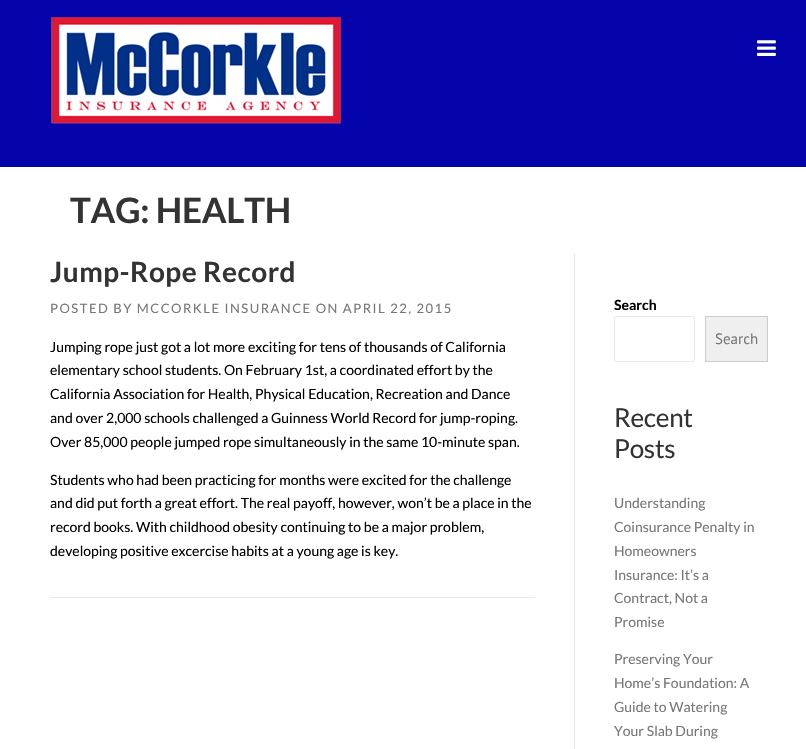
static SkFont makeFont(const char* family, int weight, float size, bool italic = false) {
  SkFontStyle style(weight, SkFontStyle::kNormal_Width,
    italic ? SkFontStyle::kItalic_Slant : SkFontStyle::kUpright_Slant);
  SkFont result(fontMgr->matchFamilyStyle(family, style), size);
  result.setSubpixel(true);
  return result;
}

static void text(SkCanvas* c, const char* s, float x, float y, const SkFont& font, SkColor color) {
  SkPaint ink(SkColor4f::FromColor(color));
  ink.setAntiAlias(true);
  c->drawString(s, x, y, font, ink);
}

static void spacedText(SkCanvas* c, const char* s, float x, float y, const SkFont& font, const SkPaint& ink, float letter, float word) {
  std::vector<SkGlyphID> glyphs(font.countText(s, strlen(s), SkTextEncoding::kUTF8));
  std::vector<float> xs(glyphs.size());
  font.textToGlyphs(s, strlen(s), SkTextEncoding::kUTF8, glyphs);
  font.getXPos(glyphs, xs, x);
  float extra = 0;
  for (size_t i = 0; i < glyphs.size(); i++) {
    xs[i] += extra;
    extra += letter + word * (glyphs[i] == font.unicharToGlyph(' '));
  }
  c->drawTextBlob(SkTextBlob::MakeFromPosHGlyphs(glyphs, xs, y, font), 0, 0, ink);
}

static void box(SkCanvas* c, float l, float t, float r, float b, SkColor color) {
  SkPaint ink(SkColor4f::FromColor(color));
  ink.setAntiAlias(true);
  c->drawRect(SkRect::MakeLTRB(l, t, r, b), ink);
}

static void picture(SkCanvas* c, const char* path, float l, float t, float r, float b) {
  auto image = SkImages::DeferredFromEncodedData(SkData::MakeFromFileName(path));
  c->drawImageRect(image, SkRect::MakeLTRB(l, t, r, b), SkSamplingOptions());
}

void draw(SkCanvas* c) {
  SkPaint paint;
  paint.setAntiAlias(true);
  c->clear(0xff0504aa);
  picture(c, "img_01.png", 51, 17, 341, 124);
  picture(c, "img_02.png", 757, 40, 776, 56);
  box(c, 0, 167, 806, 749, 0xffffffff);
  SkFont face1 = makeFont("Lato", 700, 35);
  paint.setColor(0xff333333);
  spacedText(c, "TAG: HEALTH", 70, 223, face1, paint, -0.25f, 0);
  box(c, 50, 597, 535, 598, 0xffe9e9e9);
  SkFont face2 = makeFont("Lato", 700, 28);
  spacedText(c, "Jump-Rope Record", 50, 282, face2, paint, 0.5f, 0);
  SkFont face3 = makeFont("Lato", 400, 13);
  paint.setColor(0xff777777);
  spacedText(c, "POSTED BY MCCORKLE INSURANCE ON APRIL 22, 2015", 50, 313, face3, paint, 1.5f, 0);
  SkFont face4 = makeFont("Lato", 400, 14);
  text(c, "Jumping rope just got a lot more exciting for tens of thousands of California", 50, 352, face4, 0xff000000);
  text(c, "elementary school students. On February 1st, a coordinated effort by the", 50, 375, face4, 0xff000000);
  text(c, "California Association for Health, Physical Education, Recreation and Dance", 50, 399, face4, 0xff000000);
  text(c, "and over 2,000 schools challenged a Guinness World Record for jump-roping.", 50, 423, face4, 0xff000000);
  text(c, "Over 85,000 people jumped rope simultaneously in the same 10-minute span.", 50, 447, face4, 0xff000000);
  text(c, "Students who had been practicing for months were excited for the challenge", 50, 485, face4, 0xff000000);
  text(c, "and did put forth a great effort. The real payoff, however, won’t be a place in the", 50, 508, face4, 0xff000000);
  text(c, "record books. With childhood obesity continuing to be a major problem,", 50, 532, face4, 0xff000000);
  text(c, "developing positive excercise habits at a young age is key.", 50, 556, face4, 0xff000000);
  box(c, 574, 253, 575, 749, 0xffe9e9e9);
  SkFont face5 = makeFont("Lato", 700, 14);
  text(c, "Search", 614, 310, face5, 0xff000000);
  paint.setStyle(SkPaint::kStroke_Style);
  paint.setStrokeWidth(1);
  paint.setColor(0xffe9e9e9);
  c->drawRoundRect(SkRect::MakeLTRB(614.5f, 316.5f, 694.5f, 361.5f), 1.5f, 1.5f, paint);
  paint.setStyle(SkPaint::kFill_Style);
  paint.setColor(0xffefefef);
  c->drawRect(SkRect::MakeLTRB(705.5f, 316.5f, 767.5f, 361.5f), paint);
  paint.setStyle(SkPaint::kStroke_Style);
  paint.setColor(0xffcccccc);
  c->drawRect(SkRect::MakeLTRB(705.5f, 316.5f, 767.5f, 361.5f), paint);
  SkFont face6 = makeFont("PT Sans", 400, 15);
  text(c, "Search", 715, 344, face6, 0xff777777);
  SkFont face7 = makeFont("Lato", 400, 26);
  paint.setStyle(SkPaint::kFill_Style);
  paint.setColor(0xff333333);
  spacedText(c, "Recent", 614, 427, face7, paint, -0.25f, 0);
  spacedText(c, "Posts", 614, 458, face7, paint, -0.25f, 0);
  text(c, "Understanding", 614, 508, face4, 0xff777777);
  text(c, "Coinsurance Penalty in", 614, 532, face4, 0xff777777);
  text(c, "Homeowners", 614, 556, face4, 0xff777777);
  text(c, "Insurance: It’s a", 614, 580, face4, 0xff777777);
  text(c, "Contract, Not a", 614, 603, face4, 0xff777777);
  text(c, "Promise", 614, 627, face4, 0xff777777);
  text(c, "Preserving Your", 614, 664, face4, 0xff777777);
  text(c, "Home’s Foundation: A", 614, 688, face4, 0xff777777);
  text(c, "Guide to Watering", 614, 712, face4, 0xff777777);
  text(c, "Your Slab During", 614, 736, face4, 0xff777777);
}
